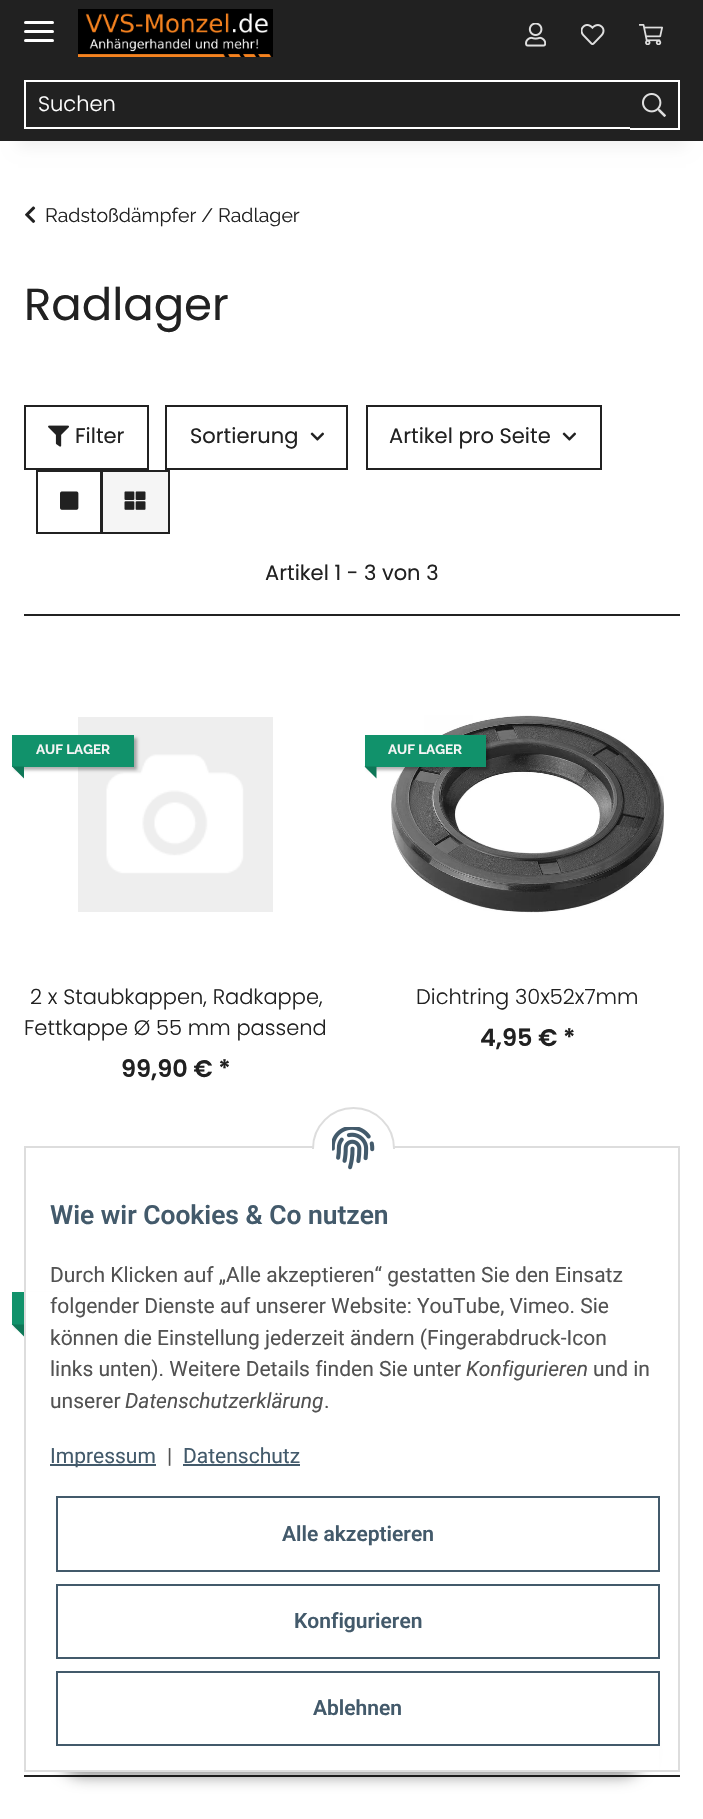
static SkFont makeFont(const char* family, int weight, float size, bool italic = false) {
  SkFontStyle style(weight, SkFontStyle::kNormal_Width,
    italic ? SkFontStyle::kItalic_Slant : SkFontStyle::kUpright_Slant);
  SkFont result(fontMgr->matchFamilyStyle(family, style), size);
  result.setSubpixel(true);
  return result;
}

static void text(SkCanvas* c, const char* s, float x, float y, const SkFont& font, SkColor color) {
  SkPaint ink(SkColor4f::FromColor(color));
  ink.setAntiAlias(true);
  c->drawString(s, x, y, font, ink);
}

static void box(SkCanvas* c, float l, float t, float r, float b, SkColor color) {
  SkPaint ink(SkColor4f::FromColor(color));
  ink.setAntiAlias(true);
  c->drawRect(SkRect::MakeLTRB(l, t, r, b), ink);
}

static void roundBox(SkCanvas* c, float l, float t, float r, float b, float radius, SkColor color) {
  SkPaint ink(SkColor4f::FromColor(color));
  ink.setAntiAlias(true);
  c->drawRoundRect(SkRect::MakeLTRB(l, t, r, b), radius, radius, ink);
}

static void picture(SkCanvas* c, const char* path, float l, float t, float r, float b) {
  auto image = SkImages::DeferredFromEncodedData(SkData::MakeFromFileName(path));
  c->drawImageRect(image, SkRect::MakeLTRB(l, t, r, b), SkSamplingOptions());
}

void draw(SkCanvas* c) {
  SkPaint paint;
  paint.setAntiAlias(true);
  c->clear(0xffffffff);
  paint.setColor(0x0f000000);
  paint.setMaskFilter(SkMaskFilter::MakeBlur(kNormal_SkBlurStyle, 7));
  c->drawRect(SkRect::MakeLTRB(18, 42, 686, 147), paint);
  paint.setMaskFilter(nullptr);
  box(c, 0, 0, 703, 141, 0xff212121);
  roundBox(c, 24, 30, 54, 33, 1.5f, 0xffffffff);
  roundBox(c, 24, 21, 54, 24, 1.5f, 0xffffffff);
  roundBox(c, 24, 39, 54, 42, 1.5f, 0xffffffff);
  picture(c, "img_01.png", 78, 9, 273, 57);
  picture(c, "img_02.png", 525, 23, 546, 47);
  picture(c, "img_03.png", 581, 24, 605, 45);
  picture(c, "img_04.png", 639, 24, 663, 45);
  paint.setStyle(SkPaint::kStroke_Style);
  paint.setStrokeWidth(2);
  paint.setColor(0xffffffff);
  c->drawRect(SkRect::MakeLTRB(25, 81, 631, 128), paint);
  SkFont face1 = makeFont("Poppins", 300, 21);
  text(c, "Suchen", 38, 111, face1, 0xffffffff);
  box(c, 630, 82, 632, 128, 0xff212121);
  box(c, 630, 80, 680, 82, 0xffffffff);
  box(c, 678, 80, 680, 129, 0xffffffff);
  box(c, 630, 128, 680, 130, 0xffffffff);
  picture(c, "img_05.png", 642, 93, 666, 117);
  picture(c, "img_06.png", 25, 206, 36, 223);
  SkFont face2 = makeFont("Raleway", 400, 19.5f);
  text(c, "Radstoßdämpfer / Radlager", 45, 222, face2, 0xff212121);
  SkFont face3 = makeFont("Poppins", 400, 45);
  text(c, "Radlager", 24, 320, face3, 0xff212121);
  paint.setColor(0xff212121);
  c->drawRect(SkRect::MakeLTRB(25, 406, 148, 469), paint);
  picture(c, "img_07.png", 48, 425, 69, 447);
  SkFont face4 = makeFont("Poppins", 400, 21);
  text(c, "Filter", 75, 443, face4, 0xff212121);
  c->drawRect(SkRect::MakeLTRB(166, 406, 347, 469), paint);
  text(c, "Sortierung", 190, 443, face4, 0xff212121);
  picture(c, "img_08.png", 310, 432, 324, 441);
  c->drawRect(SkRect::MakeLTRB(367, 406, 601, 469), paint);
  text(c, "Artikel pro Seite", 389, 443, face4, 0xff212121);
  picture(c, "img_08.png", 562, 432, 576, 441);
  c->drawRect(SkRect::MakeLTRB(37, 471, 101, 533), paint);
  picture(c, "img_09.png", 60, 491, 79, 510);
  paint.setStyle(SkPaint::kFill_Style);
  paint.setColor(0xfff5f5f5);
  c->drawRect(SkRect::MakeLTRB(102, 471, 169, 533), paint);
  paint.setStyle(SkPaint::kStroke_Style);
  paint.setColor(0xff212121);
  c->drawRect(SkRect::MakeLTRB(102, 471, 169, 533), paint);
  picture(c, "img_10.png", 124, 491, 146, 510);
  text(c, "Artikel 1 - 3 von 3", 265, 580, face4, 0xff212121);
  box(c, 24, 614, 680, 616, 0xff212121);
  picture(c, "img_11.png", 78, 717, 273, 912);
  paint.setStyle(SkPaint::kFill_Style);
  paint.setColor(0x4d000000);
  paint.setMaskFilter(SkMaskFilter::MakeBlur(kNormal_SkBlurStyle, 1.5f));
  c->drawRect(SkRect::MakeLTRB(15, 738, 137, 770), paint);
  paint.setMaskFilter(nullptr);
  box(c, 12, 735, 134, 767, 0xff11926b);
  SkFont face5 = makeFont("Raleway", 700, 13.5f);
  text(c, "AUF LAGER", 36, 754, face5, 0xfff5f5f5);
  paint.setColor(0xff0e7757);
  c->drawPath(SkPathBuilder().moveTo(24, 766.5f).lineTo(24, 778.5f).lineTo(12, 766.5f).close().detach(), paint);
  text(c, "2 x Staubkappen, Radkappe,", 30, 1004, face1, 0xff212121);
  text(c, "Fettkappe Ø 55 mm passend", 24, 1035, face1, 0xff212121);
  SkFont face6 = makeFont("Poppins", 600, 24);
  text(c, "99,90 € *", 121, 1077, face6, 0xff212121);
  picture(c, "img_12.png", 391, 715, 664, 913);
  paint.setColor(0x4d000000);
  paint.setMaskFilter(SkMaskFilter::MakeBlur(kNormal_SkBlurStyle, 1.5f));
  c->drawRect(SkRect::MakeLTRB(368, 738, 489, 770), paint);
  paint.setMaskFilter(nullptr);
  box(c, 365, 735, 486, 767, 0xff11926b);
  text(c, "AUF LAGER", 388, 754, face5, 0xfff5f5f5);
  paint.setColor(0xff0e7757);
  c->drawPath(SkPathBuilder().moveTo(376.5f, 766.5f).lineTo(376.5f, 778.5f).lineTo(364.5f, 766.5f).close().detach(), paint);
  text(c, "Dichtring 30x52x7mm", 416, 1004, face1, 0xff212121);
  text(c, "4,95 € *", 480, 1046, face6, 0xff212121);
  paint.setColor(0x4d000000);
  paint.setMaskFilter(SkMaskFilter::MakeBlur(kNormal_SkBlurStyle, 1.5f));
  c->drawRect(SkRect::MakeLTRB(15, 1295, 137, 1328), paint);
  paint.setMaskFilter(nullptr);
  box(c, 12, 1292, 24, 1325, 0xff11926b);
  paint.setColor(0xff0e7757);
  c->drawPath(SkPathBuilder().moveTo(24, 1324.5f).lineTo(24, 1336.5f).lineTo(12, 1324.5f).close().detach(), paint);
  box(c, 24, 1775, 680, 1777, 0xff212121);
  paint.setColor(0x73000000);
  paint.setMaskFilter(SkMaskFilter::MakeBlur(kNormal_SkBlurStyle, 7.5f));
  c->drawRoundRect(SkRect::MakeLTRB(59, 1728, 645, 1776), 24, 24, paint);
  paint.setMaskFilter(nullptr);
  box(c, 26, 1292, 659, 1770, 0xffffffff);
  paint.setStyle(SkPaint::kStroke_Style);
  paint.setColor(0xffdddddd);
  c->drawRect(SkRect::MakeLTRB(25, 1147, 679, 1771), paint);
  paint.setStyle(SkPaint::kFill_Style);
  paint.setColor(0xffffffff);
  c->drawCircle(353.5f, 1148.5f, 40.5f, paint);
  paint.setStyle(SkPaint::kStroke_Style);
  paint.setColor(0xffdddddd);
  c->drawCircle(353.5f, 1148.5f, 40.5f, paint);
  box(c, 312, 1149, 395, 1190, 0xffffffff);
  picture(c, "img_13.png", 332, 1127, 375, 1170);
  SkFont face7 = makeFont("Roboto", 600, 26.4f);
  text(c, "Wie wir Cookies & Co nutzen", 50, 1224, face7, 0xff435a6b);
  SkFont face8 = makeFont("Roboto", 400, 21);
  text(c, "Durch Klicken auf „Alle akzeptieren“ gestatten Sie den Einsatz", 50, 1282, face8, 0xff525252);
  text(c, "folgender Dienste auf unserer Website: YouTube, Vimeo. Sie", 50, 1313, face8, 0xff525252);
  text(c, "können die Einstellung jederzeit ändern (Fingerabdruck-Icon", 50, 1345, face8, 0xff525252);
  text(c, "links unten). Weitere Details finden Sie unter", 50, 1376, face8, 0xff525252);
  SkFont face9 = makeFont("Roboto", 400, 21, true);
  text(c, "Konfigurieren", 466, 1376, face9, 0xff525252);
  text(c, "und in", 593, 1376, face8, 0xff525252);
  text(c, "unserer", 50, 1408, face8, 0xff525252);
  text(c, "Datenschutzerklärung", 125, 1408, face9, 0xff525252);
  text(c, ".", 324, 1408, face8, 0xff525252);
  box(c, 50, 1464, 156, 1466, 0xff435a6b);
  text(c, "Impressum", 50, 1463, face8, 0xff435a6b);
  text(c, "|", 167, 1463, face8, 0xff525252);
  text(c, "Datenschutz", 183, 1463, face8, 0xff435a6b);
  box(c, 183, 1464, 300, 1466, 0xff435a6b);
  paint.setColor(0xff435a6b);
  c->drawRect(SkRect::MakeLTRB(57, 1497, 659, 1571), paint);
  SkFont face10 = makeFont("Roboto", 600, 21);
  text(c, "Alle akzeptieren", 282, 1541, face10, 0xff435a6b);
  c->drawRect(SkRect::MakeLTRB(57, 1585, 659, 1658), paint);
  text(c, "Konfigurieren", 294, 1628, face10, 0xff435a6b);
  c->drawRect(SkRect::MakeLTRB(57, 1672, 659, 1745), paint);
  text(c, "Ablehnen", 313, 1715, face10, 0xff435a6b);
}
